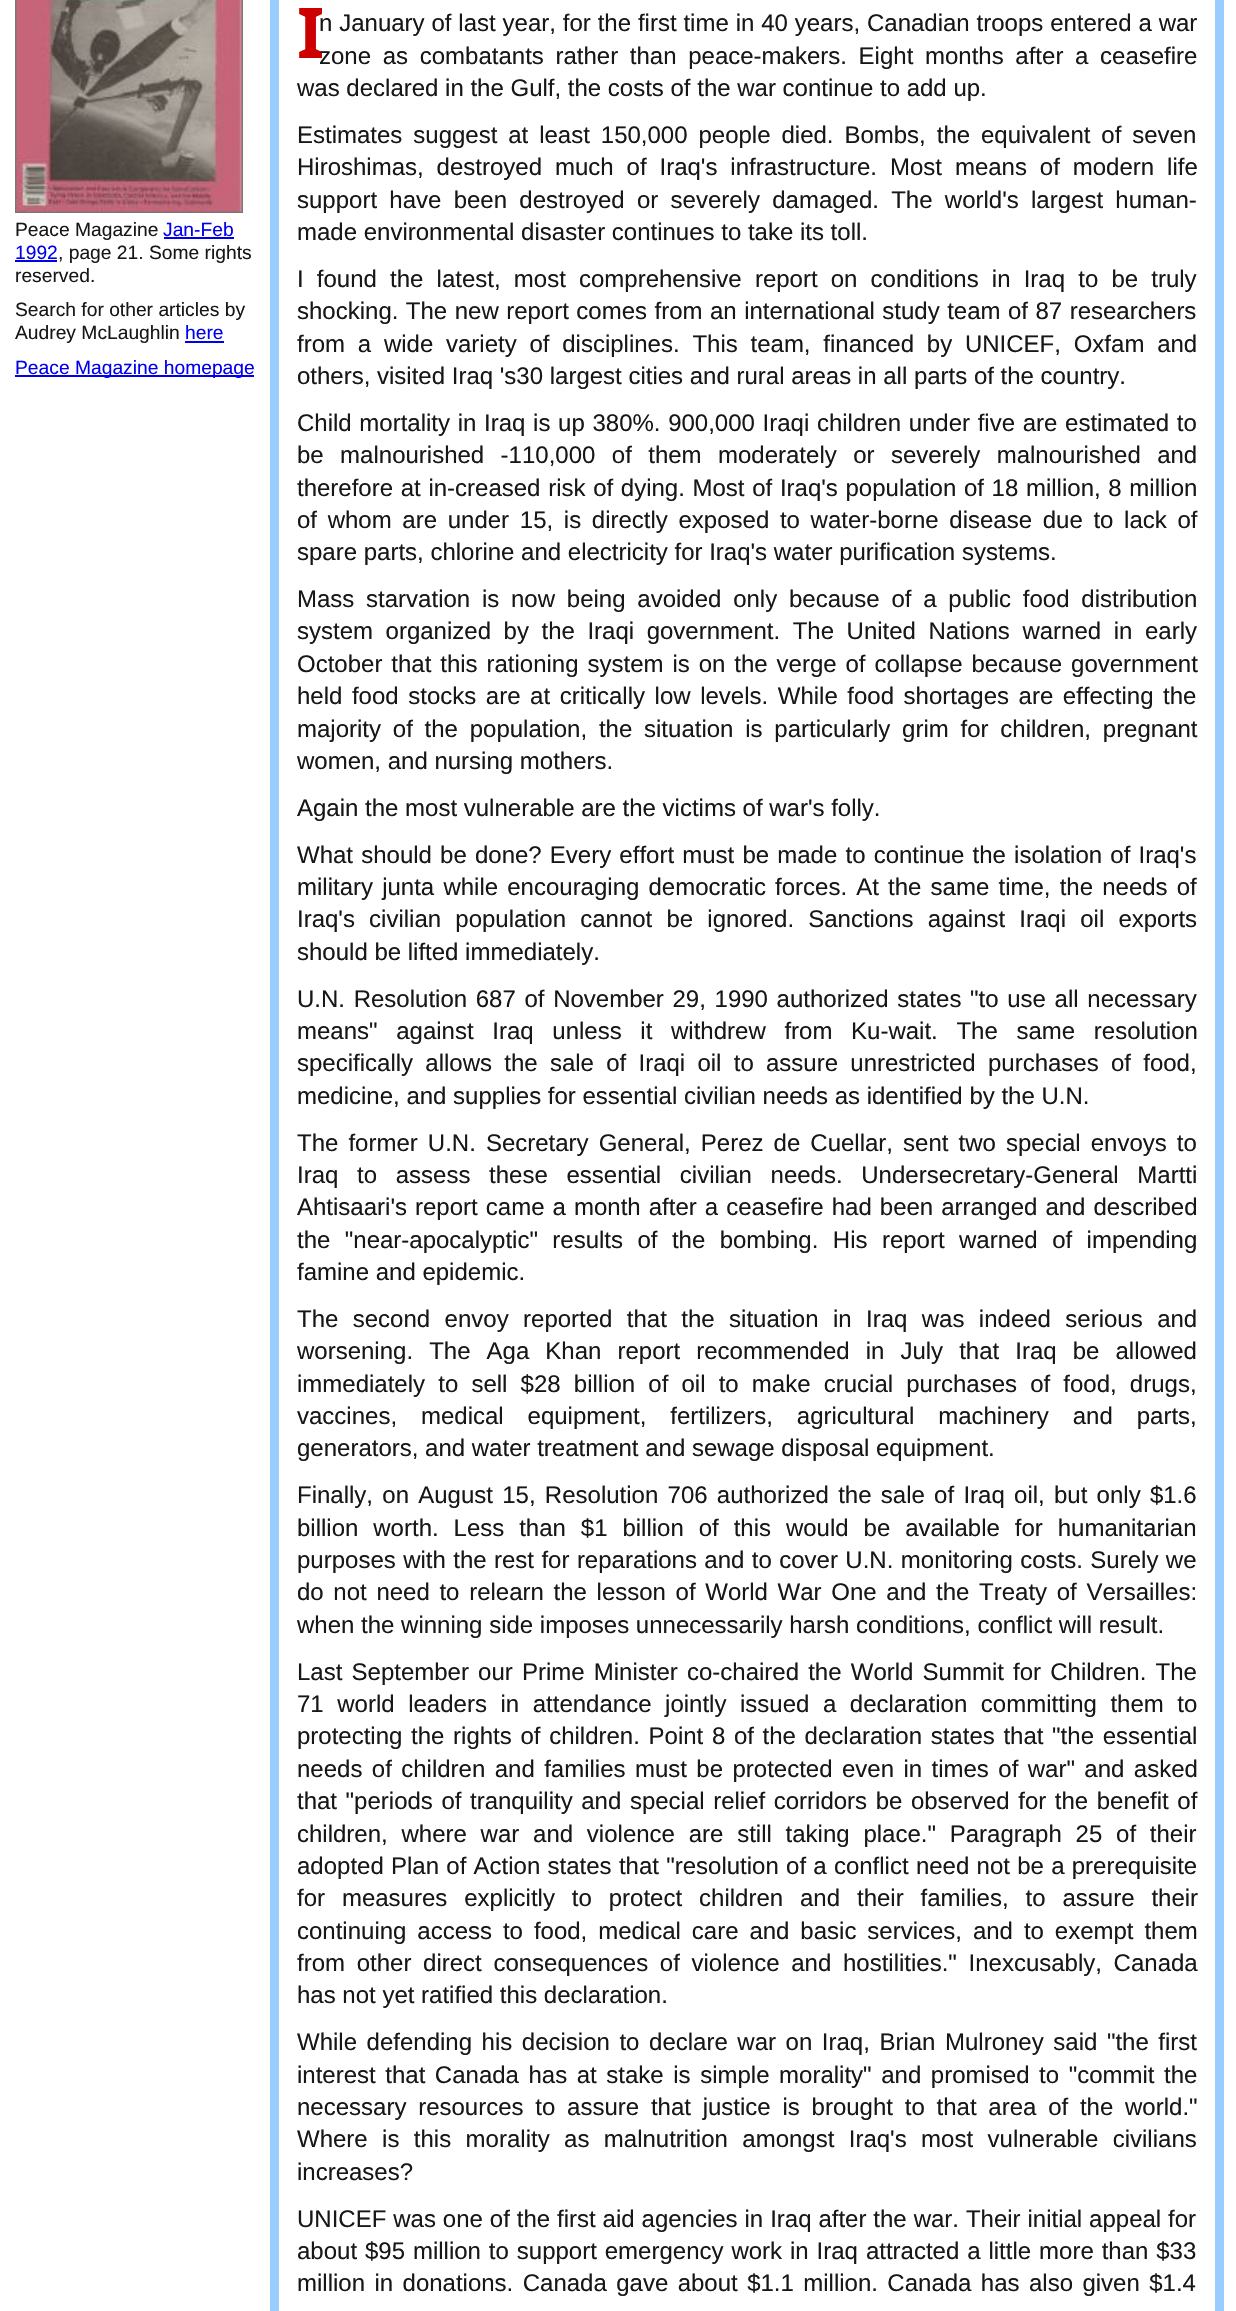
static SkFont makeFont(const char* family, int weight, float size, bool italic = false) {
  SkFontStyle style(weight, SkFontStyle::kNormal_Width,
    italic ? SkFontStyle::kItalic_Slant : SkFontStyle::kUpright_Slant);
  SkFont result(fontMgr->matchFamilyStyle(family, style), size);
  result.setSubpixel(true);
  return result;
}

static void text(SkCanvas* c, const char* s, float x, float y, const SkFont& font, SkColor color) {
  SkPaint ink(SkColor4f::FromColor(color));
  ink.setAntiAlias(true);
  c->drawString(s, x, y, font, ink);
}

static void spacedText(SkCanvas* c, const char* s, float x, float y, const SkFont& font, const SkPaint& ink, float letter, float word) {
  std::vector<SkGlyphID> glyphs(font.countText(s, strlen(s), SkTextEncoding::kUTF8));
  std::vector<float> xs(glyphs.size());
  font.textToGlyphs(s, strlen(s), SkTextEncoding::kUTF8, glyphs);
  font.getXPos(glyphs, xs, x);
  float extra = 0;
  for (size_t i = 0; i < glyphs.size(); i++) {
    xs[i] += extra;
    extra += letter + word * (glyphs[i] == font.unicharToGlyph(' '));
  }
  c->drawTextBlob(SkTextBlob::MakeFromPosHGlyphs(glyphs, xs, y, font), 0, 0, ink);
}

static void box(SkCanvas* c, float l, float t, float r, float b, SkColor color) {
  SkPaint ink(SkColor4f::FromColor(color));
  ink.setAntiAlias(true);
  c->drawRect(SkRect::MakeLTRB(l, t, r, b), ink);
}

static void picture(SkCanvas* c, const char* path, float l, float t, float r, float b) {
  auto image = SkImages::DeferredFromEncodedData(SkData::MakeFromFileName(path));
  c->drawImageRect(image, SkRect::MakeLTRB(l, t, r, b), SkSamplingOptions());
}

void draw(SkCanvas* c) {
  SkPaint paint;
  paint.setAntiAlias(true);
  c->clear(0xffffffff);
  paint.setStyle(SkPaint::kStroke_Style);
  paint.setStrokeWidth(2);
  paint.setColor(0xff777777);
  c->drawRect(SkRect::MakeLTRB(16, -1, 242, 212), paint);
  picture(c, "img_01.png", 16, 0, 242, 212);
  SkFont face1 = makeFont("Liberation Sans", 400, 19.25f);
  text(c, "Peace Magazine", 15, 236, face1, 0xff171717);
  text(c, "Jan-Feb", 163, 236, face1, 0xff0000ee);
  box(c, 164, 237, 234, 239, 0xff0000ee);
  text(c, "1992", 15, 259, face1, 0xff0000ee);
  box(c, 15, 260, 57, 262, 0xff0000ee);
  text(c, ", page 21. Some rights", 58, 259, face1, 0xff171717);
  text(c, "reserved.", 15, 282, face1, 0xff171717);
  text(c, "Search for other articles by", 15, 316, face1, 0xff171717);
  text(c, "Audrey McLaughlin", 15, 339, face1, 0xff171717);
  text(c, "here", 185, 339, face1, 0xff0000ee);
  box(c, 185, 341, 224, 343, 0xff0000ee);
  box(c, 15, 375, 254, 377, 0xff0000ee);
  text(c, "Peace Magazine homepage", 15, 374, face1, 0xff0000ee);
  box(c, 1215, 0, 1224, 2311, 0xff99ccff);
  box(c, 270, 0, 279, 2311, 0xff99ccff);
  SkFont face2 = makeFont("Noto Sans", 700, 70);
  text(c, "I", 297, 58, face2, 0xffcc0000);
  SkFont face3 = makeFont("Liberation Sans", 400, 24);
  paint.setStyle(SkPaint::kFill_Style);
  paint.setColor(0xff171717);
  spacedText(c, "n January of last year, for the first time in 40 years, Canadian troops entered a war", 319, 31, face3, paint, 0, 0.2f);
  spacedText(c, "zone as combatants rather than peace-makers. Eight months after a ceasefire", 319, 64, face3, paint, 0, 5);
  text(c, "was declared in the Gulf, the costs of the war continue to add up.", 297, 96, face3, 0xff171717);
  spacedText(c, "Estimates suggest at least 150,000 people died. Bombs, the equivalent of seven", 297, 143, face3, paint, 0, 4.25f);
  spacedText(c, "Hiroshimas, destroyed much of Iraq's infrastructure. Most means of modern life", 297, 175, face3, paint, 0, 6.25f);
  spacedText(c, "support have been destroyed or severely damaged. The world's largest human-", 297, 208, face3, paint, 0, 5.6f);
  text(c, "made environmental disaster continues to take its toll.", 297, 240, face3, 0xff171717);
  spacedText(c, "I found the latest, most comprehensive report on conditions in Iraq to be truly", 297, 287, face3, paint, 0, 6.5f);
  spacedText(c, "shocking. The new report comes from an international study team of 87 researchers", 297, 319, face3, paint, 0, 0.8f);
  spacedText(c, "from a wide variety of disciplines. This team, financed by UNICEF, Oxfam and", 297, 352, face3, paint, 0, 6.1f);
  text(c, "others, visited Iraq 's30 largest cities and rural areas in all parts of the country.", 297, 384, face3, 0xff171717);
  spacedText(c, "Child mortality in Iraq is up 380%. 900,000 Iraqi children under five are estimated to", 297, 431, face3, paint, 0, 1);
  spacedText(c, "be malnourished -110,000 of them moderately or severely malnourished and", 297, 463, face3, paint, 0, 9.75f);
  spacedText(c, "therefore at in-creased risk of dying. Most of Iraq's population of 18 million, 8 million", 297, 496, face3, paint, 0, 1);
  spacedText(c, "of whom are under 15, is directly exposed to water-borne disease due to lack of", 297, 528, face3, paint, 0, 4);
  text(c, "spare parts, chlorine and electricity for Iraq's water purification systems.", 297, 560, face3, 0xff171717);
  spacedText(c, "Mass starvation is now being avoided only because of a public food distribution", 297, 607, face3, paint, 0, 5.1f);
  spacedText(c, "system organized by the Iraqi government. The United Nations warned in early", 297, 639, face3, paint, 0, 5.9f);
  spacedText(c, "October that this rationing system is on the verge of collapse because government", 297, 672, face3, paint, 0, 2.25f);
  spacedText(c, "held food stocks are at critically low levels. While food shortages are effecting the", 297, 704, face3, paint, 0, 2.9f);
  spacedText(c, "majority of the population, the situation is particularly grim for children, pregnant", 297, 737, face3, paint, 0, 5.1f);
  text(c, "women, and nursing mothers.", 297, 769, face3, 0xff171717);
  text(c, "Again the most vulnerable are the victims of war's folly.", 297, 816, face3, 0xff171717);
  spacedText(c, "What should be done? Every effort must be made to continue the isolation of Iraq's", 297, 863, face3, paint, 0, 1.5f);
  spacedText(c, "military junta while encouraging democratic forces. At the same time, the needs of", 297, 895, face3, paint, 0, 2.5f);
  spacedText(c, "Iraq's civilian population cannot be ignored. Sanctions against Iraqi oil exports", 297, 927, face3, paint, 0, 7.5f);
  text(c, "should be lifted immediately.", 297, 960, face3, 0xff171717);
  spacedText(c, "U.N. Resolution 687 of November 29, 1990 authorized states \"to use all necessary", 297, 1007, face3, paint, 0, 2);
  spacedText(c, "means\" against Iraq unless it withdrew from Ku-wait. The same resolution", 297, 1039, face3, paint, 0, 12);
  spacedText(c, "specifically allows the sale of Iraqi oil to assure unrestricted purchases of food,", 297, 1071, face3, paint, 0, 5.6f);
  text(c, "medicine, and supplies for essential civilian needs as identified by the U.N.", 297, 1104, face3, 0xff171717);
  spacedText(c, "The former U.N. Secretary General, Perez de Cuellar, sent two special envoys to", 297, 1151, face3, paint, 0, 3.4f);
  spacedText(c, "Iraq to assess these essential civilian needs. Undersecretary-General Martti", 297, 1183, face3, paint, 0, 12);
  spacedText(c, "Ahtisaari's report came a month after a ceasefire had been arranged and described", 297, 1215, face3, paint, 0, 1.4f);
  spacedText(c, "the \"near-apocalyptic\" results of the bombing. His report warned of impending", 297, 1248, face3, paint, 0, 7.75f);
  text(c, "famine and epidemic.", 297, 1280, face3, 0xff171717);
  spacedText(c, "The second envoy reported that the situation in Iraq was indeed serious and", 297, 1327, face3, paint, 0, 7.75f);
  spacedText(c, "worsening. The Aga Khan report recommended in July that Iraq be allowed", 297, 1359, face3, paint, 0, 9.4f);
  spacedText(c, "immediately to sell $28 billion of oil to make crucial purchases of food, drugs,", 297, 1392, face3, paint, 0, 6.5f);
  spacedText(c, "vaccines, medical equipment, fertilizers, agricultural machinery and parts,", 297, 1424, face3, paint, 0, 17.25f);
  text(c, "generators, and water treatment and sewage disposal equipment.", 297, 1456, face3, 0xff171717);
  spacedText(c, "Finally, on August 15, Resolution 706 authorized the sale of Iraq oil, but only $1.6", 297, 1503, face3, paint, 0, 2.6f);
  spacedText(c, "billion worth. Less than $1 billion of this would be available for humanitarian", 297, 1536, face3, paint, 0, 8.25f);
  spacedText(c, "purposes with the rest for reparations and to cover U.N. monitoring costs. Surely we", 297, 1568, face3, paint, 0, 0.75f);
  spacedText(c, "do not need to relearn the lesson of World War One and the Treaty of Versailles:", 297, 1600, face3, paint, 0, 3);
  text(c, "when the winning side imposes unnecessarily harsh conditions, conflict will result.", 297, 1633, face3, 0xff171717);
  spacedText(c, "Last September our Prime Minister co-chaired the World Summit for Children. The", 297, 1680, face3, paint, 0, 2.5f);
  spacedText(c, "71 world leaders in attendance jointly issued a declaration committing them to", 297, 1712, face3, paint, 0, 6.9f);
  spacedText(c, "protecting the rights of children. Point 8 of the declaration states that \"the essential", 297, 1744, face3, paint, 0, 2);
  spacedText(c, "needs of children and families must be protected even in times of war\" and asked", 297, 1777, face3, paint, 0, 2.75f);
  spacedText(c, "that \"periods of tranquility and special relief corridors be observed for the benefit of", 297, 1809, face3, paint, 0, 1.9f);
  spacedText(c, "children, where war and violence are still taking place.\" Paragraph 25 of their", 297, 1842, face3, paint, 0, 7.1f);
  spacedText(c, "adopted Plan of Action states that \"resolution of a conflict need not be a prerequisite", 297, 1874, face3, paint, 0, 0.6f);
  spacedText(c, "for measures explicitly to protect children and their families, to assure their", 297, 1906, face3, paint, 0, 10.25f);
  spacedText(c, "continuing access to food, medical care and basic services, and to exempt them", 297, 1939, face3, paint, 0, 4.25f);
  spacedText(c, "from other direct consequences of violence and hostilities.\" Inexcusably, Canada", 297, 1971, face3, paint, 0, 5);
  text(c, "has not yet ratified this declaration.", 297, 2003, face3, 0xff171717);
  spacedText(c, "While defending his decision to declare war on Iraq, Brian Mulroney said \"the first", 297, 2050, face3, paint, 0, 2.9f);
  spacedText(c, "interest that Canada has at stake is simple morality\" and promised to \"commit the", 297, 2083, face3, paint, 0, 2.9f);
  spacedText(c, "necessary resources to assure that justice is brought to that area of the world.\"", 297, 2115, face3, paint, 0, 5.1f);
  spacedText(c, "Where is this morality as malnutrition amongst Iraq's most vulnerable civilians", 297, 2147, face3, paint, 0, 7.75f);
  text(c, "increases?", 297, 2180, face3, 0xff171717);
  spacedText(c, "UNICEF was one of the first aid agencies in Iraq after the war. Their initial appeal for", 297, 2227, face3, paint, 0, 0.25f);
  spacedText(c, "about $95 million to support emergency work in Iraq attracted a little more than $33", 297, 2259, face3, paint, 0, 1.25f);
  spacedText(c, "million in donations. Canada gave about $1.1 million. Canada has also given $1.4", 297, 2291, face3, paint, 0, 2.75f);
}
